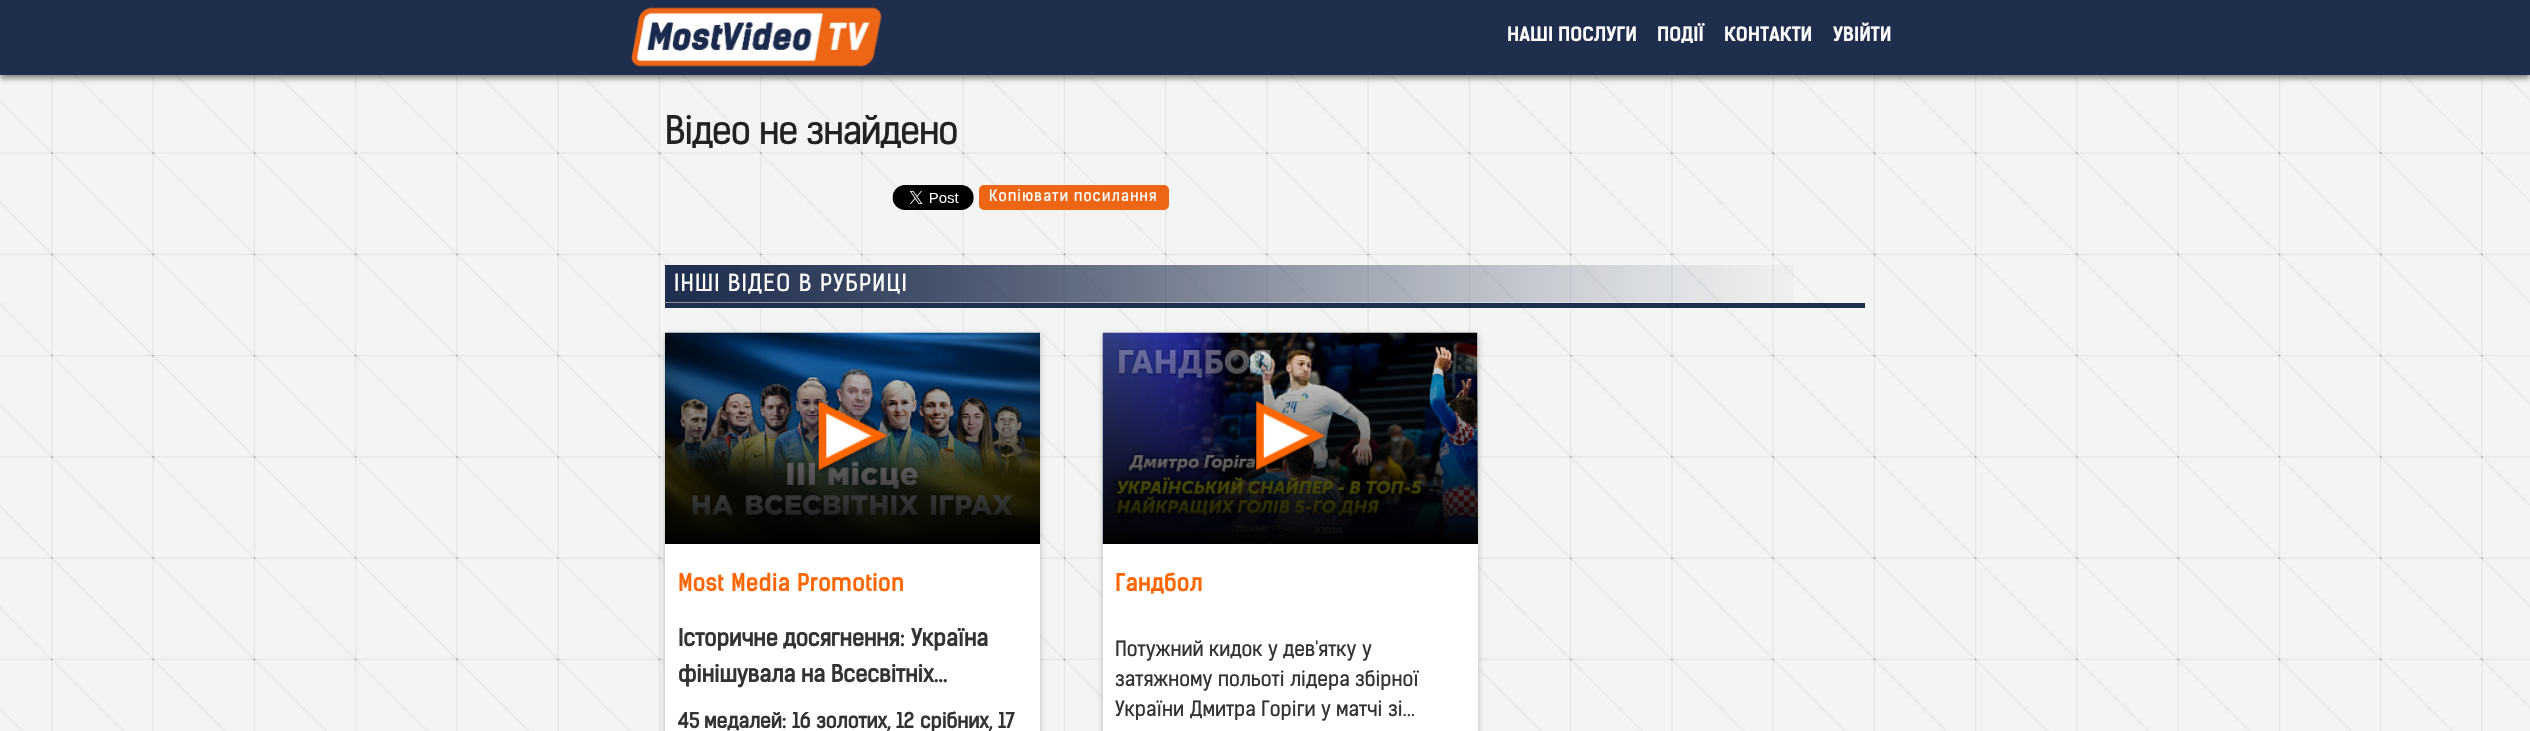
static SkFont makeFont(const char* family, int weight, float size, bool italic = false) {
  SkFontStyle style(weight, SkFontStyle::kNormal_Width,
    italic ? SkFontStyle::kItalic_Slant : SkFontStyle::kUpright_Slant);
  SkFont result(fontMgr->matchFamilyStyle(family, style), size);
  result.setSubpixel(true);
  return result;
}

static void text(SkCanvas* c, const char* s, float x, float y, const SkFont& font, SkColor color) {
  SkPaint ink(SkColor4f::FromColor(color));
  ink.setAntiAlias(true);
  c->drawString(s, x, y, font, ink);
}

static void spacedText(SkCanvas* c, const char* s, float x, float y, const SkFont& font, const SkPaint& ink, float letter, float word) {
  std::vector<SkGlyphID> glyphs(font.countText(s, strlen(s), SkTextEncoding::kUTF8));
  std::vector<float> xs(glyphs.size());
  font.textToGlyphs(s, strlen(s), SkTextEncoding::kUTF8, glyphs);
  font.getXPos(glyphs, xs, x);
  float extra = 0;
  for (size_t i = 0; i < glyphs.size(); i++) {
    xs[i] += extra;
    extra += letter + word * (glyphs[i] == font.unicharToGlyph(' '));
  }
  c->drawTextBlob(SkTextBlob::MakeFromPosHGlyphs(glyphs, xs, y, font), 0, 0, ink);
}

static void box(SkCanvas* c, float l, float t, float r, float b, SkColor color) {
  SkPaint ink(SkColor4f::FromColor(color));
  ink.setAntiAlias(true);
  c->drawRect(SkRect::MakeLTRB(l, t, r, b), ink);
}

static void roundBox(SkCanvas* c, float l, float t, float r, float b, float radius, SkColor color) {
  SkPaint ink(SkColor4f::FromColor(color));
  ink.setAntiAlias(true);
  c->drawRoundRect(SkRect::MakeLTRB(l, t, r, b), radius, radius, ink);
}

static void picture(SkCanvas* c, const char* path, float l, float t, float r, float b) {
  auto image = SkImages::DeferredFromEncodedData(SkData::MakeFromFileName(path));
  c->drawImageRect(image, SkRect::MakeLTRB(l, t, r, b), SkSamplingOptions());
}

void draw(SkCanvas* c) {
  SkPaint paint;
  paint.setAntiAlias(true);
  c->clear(0xffffffff);
  picture(c, "img_01.png", 0, 75, 2530, 731);
  paint.setColor(0x80000000);
  paint.setMaskFilter(SkMaskFilter::MakeBlur(kNormal_SkBlurStyle, 3));
  c->drawRect(SkRect::MakeLTRB(0, 3, 2530, 78), paint);
  paint.setMaskFilter(nullptr);
  box(c, 0, 0, 2530, 75, 0xff1f2e4d);
  picture(c, "img_02.png", 631, 7, 882, 67);
  SkFont face1 = makeFont("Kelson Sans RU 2", 700, 18.75f);
  text(c, "НАШІ", 1507, 41, face1, 0xffffffff);
  text(c, "ПОСЛУГИ", 1558, 41, face1, 0xffffffff);
  text(c, "ПОДІЇ", 1657, 41, face1, 0xffffffff);
  text(c, "КОНТАКТИ", 1724, 41, face1, 0xffffffff);
  text(c, "УВІЙТИ", 1833, 41, face1, 0xffffffff);
  SkFont face2 = makeFont("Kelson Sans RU", 400, 37.5f);
  paint.setColor(0xff222222);
  spacedText(c, "Відео", 665, 144, face2, paint, -1.25f, 0);
  spacedText(c, "не", 759, 144, face2, paint, -1.25f, 0);
  spacedText(c, "знайдено", 806, 144, face2, paint, -1.25f, 0);
  picture(c, "img_03.png", 892, 185, 974, 210);
  roundBox(c, 979, 185, 1169, 210, 5, 0xffed6616);
  SkFont face3 = makeFont("Kelson Sans RU", 400, 15);
  paint.setColor(0xffffffff);
  spacedText(c, "Копіювати", 989, 201, face3, paint, 1.25f, 0);
  spacedText(c, "посилання", 1074, 201, face3, paint, 1.25f, 0);
  picture(c, "img_04.png", 665, 265, 1794, 303);
  box(c, 665, 303, 1865, 308, 0xff1f2e4d);
  SkFont face4 = makeFont("Kelson Sans RU", 400, 22.5f);
  spacedText(c, "ІНШІ", 674, 291, face4, paint, 1.25f, 0);
  spacedText(c, "ВІДЕО", 728, 291, face4, paint, 1.25f, 0);
  spacedText(c, "В", 799, 291, face4, paint, 1.25f, 0);
  spacedText(c, "РУБРИЦІ", 820, 291, face4, paint, 1.25f, 0);
  paint.setColor(0x40000000);
  paint.setMaskFilter(SkMaskFilter::MakeBlur(kNormal_SkBlurStyle, 3));
  c->drawRect(SkRect::MakeLTRB(665, 335, 1040, 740), paint);
  paint.setMaskFilter(nullptr);
  box(c, 665, 544, 1040, 731, 0xffffffff);
  picture(c, "img_05.png", 665, 332, 1040, 543);
  {
    const SkColor colors[] = {0xff000000, 0x00000000};
    const float stops[] = {0, 1};
    const SkPoint ends[] = {{853, 544}, {853, 333}};
    paint.setShader(SkGradientShader::MakeLinear(ends, colors, stops, 2, SkTileMode::kClamp));
    paint.setAlpha(255);
  }
  c->drawRect(SkRect::MakeLTRB(665, 338, 1040, 544), paint);
  picture(c, "img_06.png", 815, 401, 888, 473);
  SkFont face5 = makeFont("Kelson Sans RU", 700, 22.5f);
  paint.setShader(nullptr);
  paint.setColor(0xffff6600);
  spacedText(c, "Most", 678, 591, face5, paint, 0.6f, 0);
  spacedText(c, "Media", 731, 591, face5, paint, 0.6f, 0);
  spacedText(c, "Promotion", 797, 591, face5, paint, 0.6f, 0);
  text(c, "Історичне", 678, 646, face5, 0xff333333);
  text(c, "досягнення:", 783, 646, face5, 0xff333333);
  text(c, "Україна", 911, 646, face5, 0xff333333);
  text(c, "фінішувала", 678, 682, face5, 0xff333333);
  text(c, "на", 801, 682, face5, 0xff333333);
  text(c, "Всесвітніх...", 831, 682, face5, 0xff333333);
  SkFont face6 = makeFont("Kelson Sans RU", 700, 20);
  text(c, "45", 678, 728, face6, 0xff333333);
  text(c, "медалей:", 704, 728, face6, 0xff333333);
  text(c, "16", 792, 728, face6, 0xff333333);
  text(c, "золотих,", 816, 728, face6, 0xff333333);
  text(c, "12", 896, 728, face6, 0xff333333);
  text(c, "срібних,", 920, 728, face6, 0xff333333);
  text(c, "17", 998, 728, face6, 0xff333333);
  paint.setColor(0x40000000);
  paint.setMaskFilter(SkMaskFilter::MakeBlur(kNormal_SkBlurStyle, 3));
  c->drawRect(SkRect::MakeLTRB(1103, 335, 1478, 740), paint);
  paint.setMaskFilter(nullptr);
  box(c, 1103, 333, 1478, 731, 0xffffffff);
  picture(c, "img_07.png", 1102, 332, 1478, 544);
  {
    const SkColor colors[] = {0xff000000, 0x00000000};
    const float stops[] = {0, 1};
    const SkPoint ends[] = {{1290, 544}, {1290, 333}};
    paint.setShader(SkGradientShader::MakeLinear(ends, colors, stops, 2, SkTileMode::kClamp));
    paint.setAlpha(255);
  }
  c->drawRect(SkRect::MakeLTRB(1103, 338, 1478, 544), paint);
  picture(c, "img_08.png", 1253, 401, 1326, 471);
  paint.setShader(nullptr);
  paint.setColor(0xffff6600);
  spacedText(c, "Гандбол", 1115, 591, face5, paint, 0.6f, 0);
  SkFont face7 = makeFont("Kelson Sans RU", 400, 20);
  text(c, "Потужний", 1115, 656, face7, 0xff333333);
  text(c, "кидок", 1209, 656, face7, 0xff333333);
  text(c, "у", 1268, 656, face7, 0xff333333);
  text(c, "дев'ятку", 1283, 656, face7, 0xff333333);
  text(c, "у", 1362, 656, face7, 0xff333333);
  text(c, "затяжному", 1115, 686, face7, 0xff333333);
  text(c, "польоті", 1218, 686, face7, 0xff333333);
  text(c, "лідера", 1290, 686, face7, 0xff333333);
  text(c, "збірної", 1355, 686, face7, 0xff333333);
  text(c, "України", 1115, 716, face7, 0xff333333);
  text(c, "Дмитра", 1190, 716, face7, 0xff333333);
  text(c, "Горіги", 1261, 716, face7, 0xff333333);
  text(c, "у", 1321, 716, face7, 0xff333333);
  text(c, "матчі", 1336, 716, face7, 0xff333333);
  text(c, "зі...", 1388, 716, face7, 0xff333333);
}
